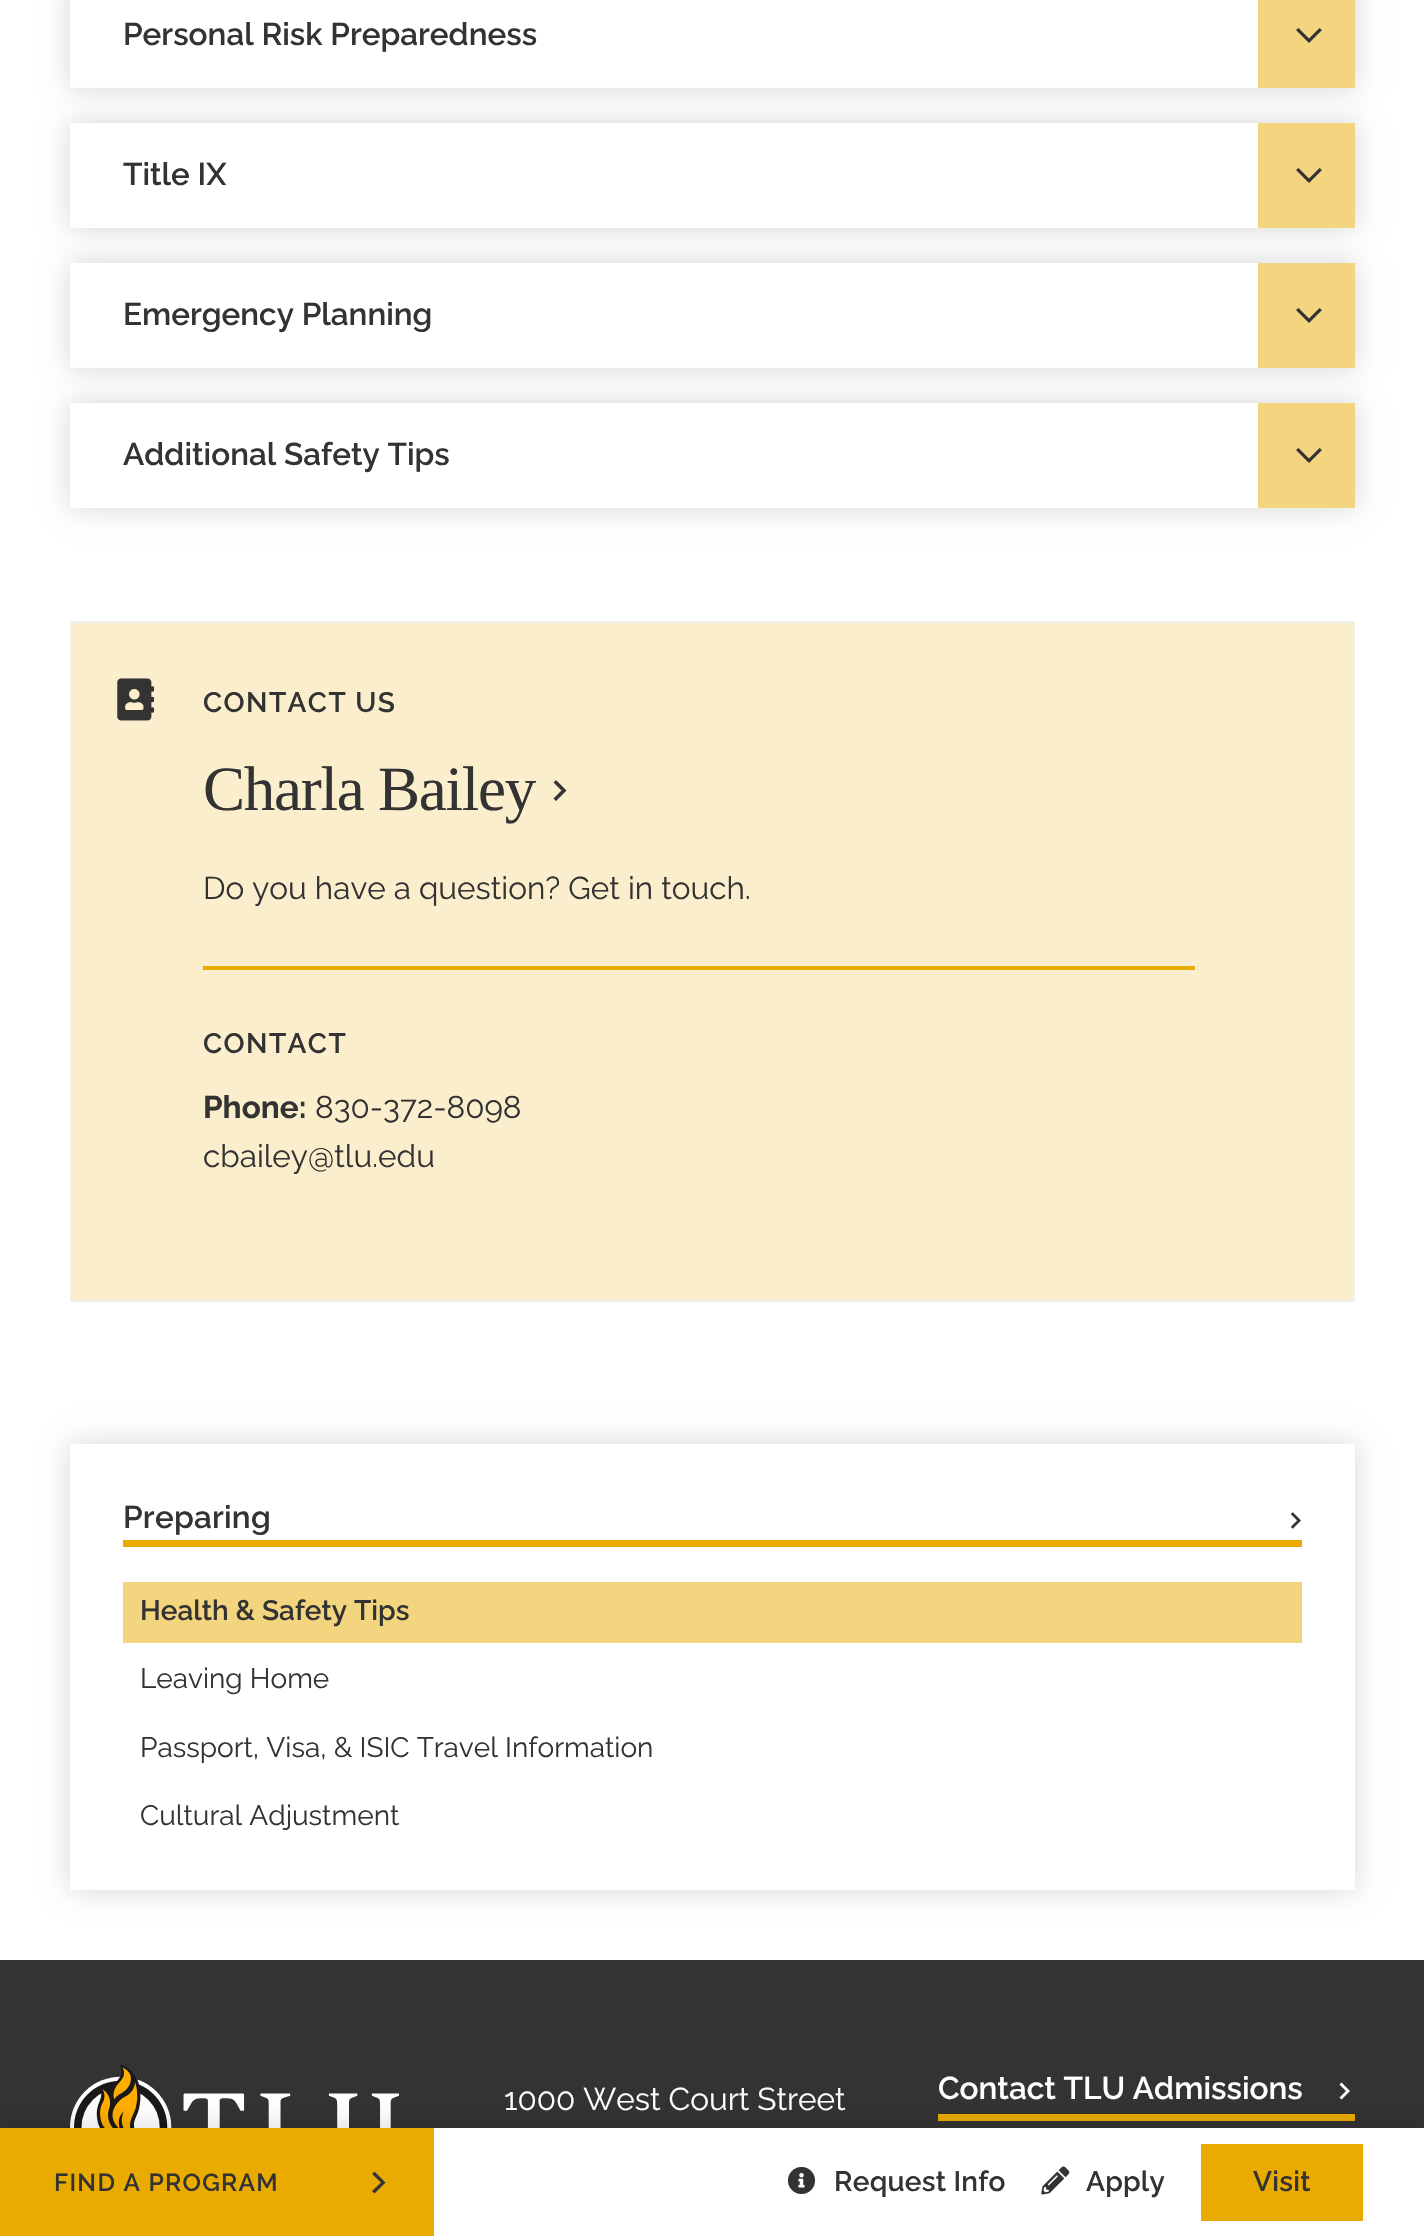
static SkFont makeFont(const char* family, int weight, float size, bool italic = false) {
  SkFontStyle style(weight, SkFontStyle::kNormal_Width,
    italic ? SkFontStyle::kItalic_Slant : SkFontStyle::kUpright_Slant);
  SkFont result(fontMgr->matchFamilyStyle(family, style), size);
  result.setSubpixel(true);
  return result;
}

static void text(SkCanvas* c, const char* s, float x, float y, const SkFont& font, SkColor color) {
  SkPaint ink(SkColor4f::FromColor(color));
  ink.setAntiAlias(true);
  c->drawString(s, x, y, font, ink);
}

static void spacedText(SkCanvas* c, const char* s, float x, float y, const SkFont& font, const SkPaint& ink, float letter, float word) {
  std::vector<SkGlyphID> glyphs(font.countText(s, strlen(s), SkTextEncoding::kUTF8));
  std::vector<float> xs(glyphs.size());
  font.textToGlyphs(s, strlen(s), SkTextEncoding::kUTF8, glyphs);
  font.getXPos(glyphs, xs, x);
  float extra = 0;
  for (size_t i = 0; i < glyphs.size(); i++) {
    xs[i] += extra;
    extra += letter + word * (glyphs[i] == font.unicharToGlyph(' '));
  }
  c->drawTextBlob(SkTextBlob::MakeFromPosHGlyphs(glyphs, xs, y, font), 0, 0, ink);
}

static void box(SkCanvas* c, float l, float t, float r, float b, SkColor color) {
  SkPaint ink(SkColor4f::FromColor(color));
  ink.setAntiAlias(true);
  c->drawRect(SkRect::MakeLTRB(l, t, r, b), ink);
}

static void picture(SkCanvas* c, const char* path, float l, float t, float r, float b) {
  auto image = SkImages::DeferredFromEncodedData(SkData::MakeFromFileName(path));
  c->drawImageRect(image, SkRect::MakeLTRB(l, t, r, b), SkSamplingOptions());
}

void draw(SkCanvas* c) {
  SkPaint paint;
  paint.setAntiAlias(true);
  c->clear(0xffffffff);
  paint.setColor(0x29000000);
  paint.setMaskFilter(SkMaskFilter::MakeBlur(kNormal_SkBlurStyle, 13));
  c->drawRect(SkRect::MakeLTRB(70, -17, 1355, 88), paint);
  paint.setMaskFilter(nullptr);
  box(c, 70, 0, 1258, 88, 0xffffffff);
  SkFont face1 = makeFont("Raleway", 600, 31.5f);
  text(c, "Personal Risk Preparedness", 123, 45, face1, 0xff333333);
  paint.setMaskFilter(SkMaskFilter::MakeBlur(kNormal_SkBlurStyle, 13));
  c->drawRect(SkRect::MakeLTRB(70, 123, 1355, 228), paint);
  paint.setMaskFilter(nullptr);
  box(c, 1258, 0, 1355, 88, 0xfff4d57f);
  paint.setColor(0xff333333);
  c->drawPath(SkPathBuilder().moveTo(1298.5f, 28).lineTo(1309, 38.5f).lineTo(1319.5f, 28).lineTo(1322, 30).lineTo(1309, 43).lineTo(1296, 30).close().detach(), paint);
  box(c, 70, 123, 1258, 228, 0xffffffff);
  text(c, "Title IX", 123, 185, face1, 0xff333333);
  paint.setColor(0x29000000);
  paint.setMaskFilter(SkMaskFilter::MakeBlur(kNormal_SkBlurStyle, 13));
  c->drawRect(SkRect::MakeLTRB(70, 263, 1355, 368), paint);
  paint.setMaskFilter(nullptr);
  box(c, 1258, 123, 1355, 228, 0xfff4d57f);
  paint.setColor(0xff333333);
  c->drawPath(SkPathBuilder().moveTo(1298.5f, 168).lineTo(1309, 178.5f).lineTo(1319.5f, 168).lineTo(1322, 170).lineTo(1309, 183).lineTo(1296, 170).close().detach(), paint);
  box(c, 70, 263, 1258, 368, 0xffffffff);
  text(c, "Emergency Planning", 123, 325, face1, 0xff333333);
  paint.setColor(0x29000000);
  paint.setMaskFilter(SkMaskFilter::MakeBlur(kNormal_SkBlurStyle, 13));
  c->drawRect(SkRect::MakeLTRB(70, 403, 1355, 508), paint);
  paint.setMaskFilter(nullptr);
  box(c, 1258, 263, 1355, 368, 0xfff4d57f);
  paint.setColor(0xff333333);
  c->drawPath(SkPathBuilder().moveTo(1298.5f, 308).lineTo(1309, 318.5f).lineTo(1319.5f, 308).lineTo(1322, 310).lineTo(1309, 323).lineTo(1296, 310).close().detach(), paint);
  box(c, 70, 403, 1258, 508, 0xffffffff);
  text(c, "Additional Safety Tips", 123, 465, face1, 0xff333333);
  box(c, 1258, 403, 1355, 508, 0xfff4d57f);
  c->drawPath(SkPathBuilder().moveTo(1298.5f, 448).lineTo(1309, 458.5f).lineTo(1319.5f, 448).lineTo(1322, 450).lineTo(1309, 463).lineTo(1296, 450).close().detach(), paint);
  paint.setColor(0xfffbeecc);
  c->drawRect(SkRect::MakeLTRB(71, 622, 1354, 1301), paint);
  paint.setStyle(SkPaint::kStroke_Style);
  paint.setStrokeWidth(2);
  paint.setColor(0xffefefef);
  c->drawRect(SkRect::MakeLTRB(71, 622, 1354, 1301), paint);
  picture(c, "img_01.png", 117, 678, 154, 721);
  SkFont face2 = makeFont("Raleway", 600, 28);
  paint.setStyle(SkPaint::kFill_Style);
  paint.setColor(0xff333333);
  spacedText(c, "CONTACT US", 203, 712, face2, paint, 1.4f, 0);
  SkFont face3 = makeFont("Liberation Serif", 400, 63);
  spacedText(c, "Charla Bailey", 203, 810, face3, paint, -1.25f, 0);
  c->drawPath(SkPathBuilder().moveTo(553.5f, 798.5f).lineTo(561.5f, 790.5f).lineTo(553.5f, 782.5f).lineTo(556, 780).lineTo(566.5f, 790.5f).lineTo(556, 801).close().detach(), paint);
  SkFont face4 = makeFont("Raleway", 400, 31.5f);
  text(c, "Do you have a question? Get in touch.", 203, 899, face4, 0xff333333);
  box(c, 203, 966, 1195, 970, 0xffeaab00);
  spacedText(c, "CONTACT", 203, 1053, face2, paint, 1.4f, 0);
  SkFont face5 = makeFont("Raleway", 700, 31.5f);
  text(c, "Phone:", 203, 1118, face5, 0xff333333);
  text(c, "830-372-8098", 315, 1118, face4, 0xff333333);
  text(c, "cbailey@tlu.edu", 203, 1167, face4, 0xff333333);
  c->save();
  c->clipPath(SkPathBuilder(SkPathFillType::kEvenOdd).moveTo(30, 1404).lineTo(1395, 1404).lineTo(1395, 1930).lineTo(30, 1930).close().moveTo(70, 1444).lineTo(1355, 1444).lineTo(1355, 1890).lineTo(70, 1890).close().detach(), true);
  paint.setColor(0x29000000);
  paint.setMaskFilter(SkMaskFilter::MakeBlur(kNormal_SkBlurStyle, 13));
  c->drawRect(SkRect::MakeLTRB(70, 1444, 1355, 1890), paint);
  paint.setMaskFilter(nullptr);
  c->restore();
  paint.setColor(0xff333333);
  spacedText(c, "Preparing", 123, 1528, face1, paint, 0.25f, 0);
  picture(c, "img_02.png", 1290, 1512, 1301, 1529);
  box(c, 123, 1540, 1302, 1547, 0xffeaab00);
  box(c, 123, 1582, 1302, 1643, 0xfff4d57f);
  text(c, "Health & Safety Tips", 140, 1620, face2, 0xff333333);
  SkFont face6 = makeFont("Raleway", 400, 28);
  text(c, "Leaving Home", 140, 1688, face6, 0xff333333);
  text(c, "Passport, Visa, & ISIC Travel Information", 140, 1757, face6, 0xff333333);
  text(c, "Cultural Adjustment", 140, 1825, face6, 0xff333333);
  box(c, 0, 1960, 1424, 2128, 0xff333333);
  picture(c, "img_03.png", 70, 2065, 399, 2128);
  text(c, "1000 West Court Street", 504, 2110, face4, 0xffffffff);
  text(c, "Contact TLU Admissions", 938, 2099, face1, 0xffffffff);
  paint.setColor(0xffffffff);
  c->drawPath(SkPathBuilder().moveTo(1339.5f, 2097.5f).lineTo(1346, 2091).lineTo(1339.5f, 2084.5f).lineTo(1341.5f, 2082.5f).lineTo(1350, 2091).lineTo(1341.5f, 2099.5f).close().detach(), paint);
  box(c, 938, 2114, 1355, 2121, 0xffeaab00);
  paint.setColor(0x29000000);
  paint.setMaskFilter(SkMaskFilter::MakeBlur(kNormal_SkBlurStyle, 13));
  c->drawRect(SkRect::MakeLTRB(0, 2128, 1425, 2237), paint);
  paint.setMaskFilter(nullptr);
  box(c, 434, 2128, 1424, 2236, 0xffffffff);
  box(c, 0, 2128, 434, 2236, 0xffeaab00);
  SkFont face7 = makeFont("Raleway", 600, 24.5f);
  paint.setColor(0xff333333);
  spacedText(c, "FIND A PROGRAM", 54, 2191, face7, paint, 1.25f, 0);
  c->drawPath(SkPathBuilder().moveTo(372, 2174).lineTo(374.5f, 2171.5f).lineTo(385.5f, 2182.5f).lineTo(374.5f, 2193.5f).lineTo(372, 2191).lineTo(381, 2182.5f).close().detach(), paint);
  picture(c, "img_04.png", 787, 2166, 816, 2195);
  spacedText(c, "Request Info", 834, 2191, face2, paint, 0.25f, 0);
  picture(c, "img_05.png", 1041, 2166, 1070, 2195);
  spacedText(c, "Apply", 1086, 2191, face2, paint, 0.25f, 0);
  box(c, 1201, 2144, 1363, 2221, 0xffeaab00);
  spacedText(c, "Visit", 1253, 2191, face2, paint, 0.25f, 0);
}
